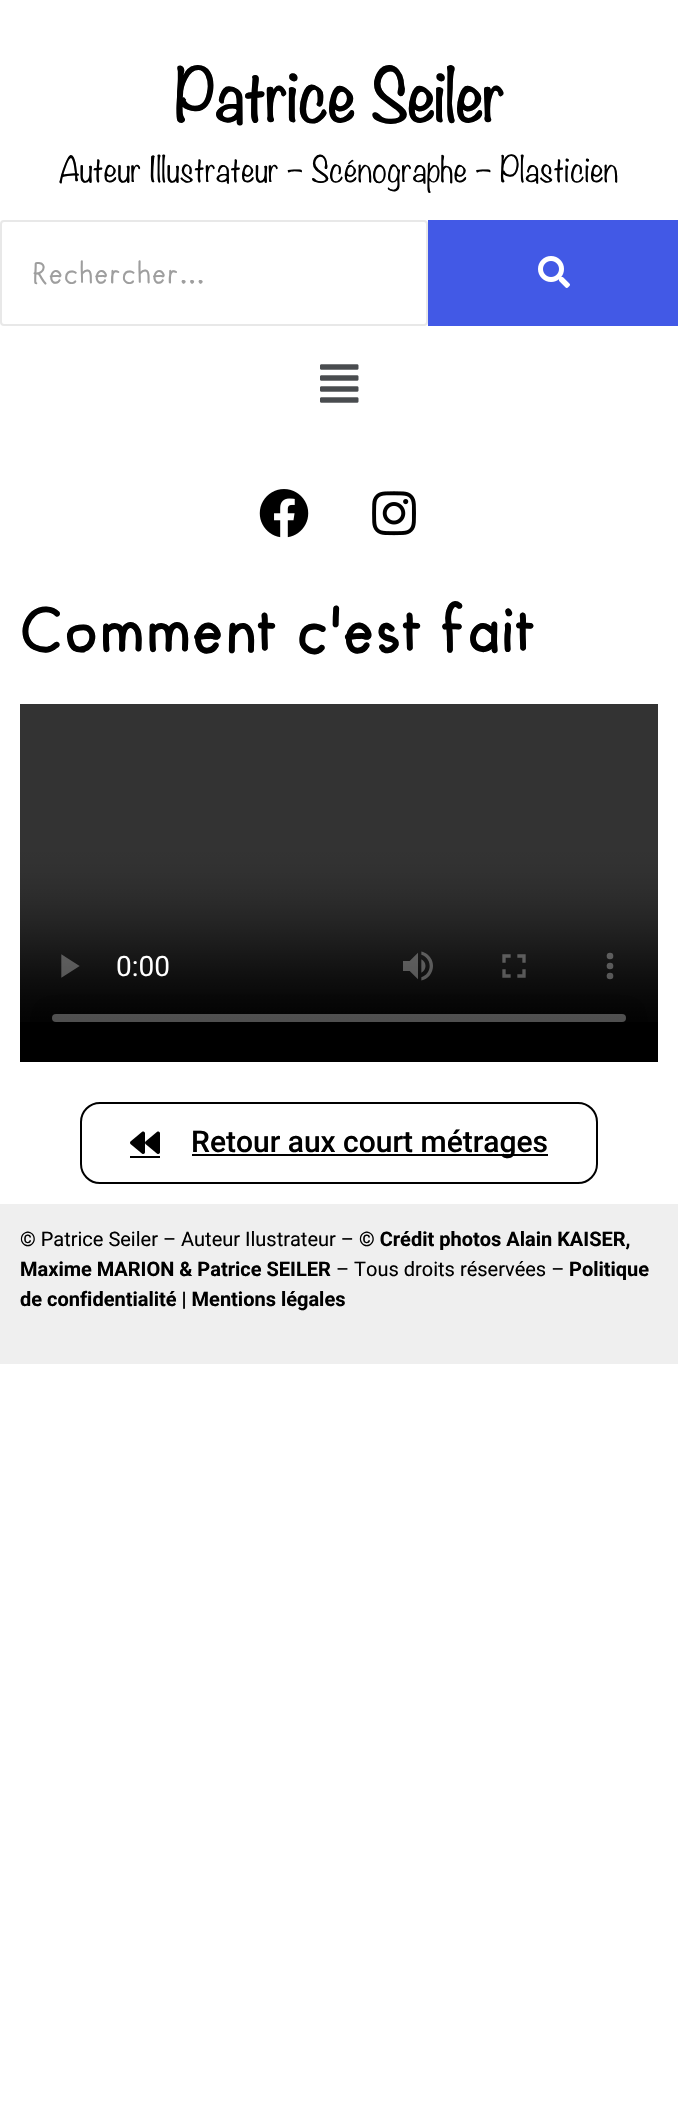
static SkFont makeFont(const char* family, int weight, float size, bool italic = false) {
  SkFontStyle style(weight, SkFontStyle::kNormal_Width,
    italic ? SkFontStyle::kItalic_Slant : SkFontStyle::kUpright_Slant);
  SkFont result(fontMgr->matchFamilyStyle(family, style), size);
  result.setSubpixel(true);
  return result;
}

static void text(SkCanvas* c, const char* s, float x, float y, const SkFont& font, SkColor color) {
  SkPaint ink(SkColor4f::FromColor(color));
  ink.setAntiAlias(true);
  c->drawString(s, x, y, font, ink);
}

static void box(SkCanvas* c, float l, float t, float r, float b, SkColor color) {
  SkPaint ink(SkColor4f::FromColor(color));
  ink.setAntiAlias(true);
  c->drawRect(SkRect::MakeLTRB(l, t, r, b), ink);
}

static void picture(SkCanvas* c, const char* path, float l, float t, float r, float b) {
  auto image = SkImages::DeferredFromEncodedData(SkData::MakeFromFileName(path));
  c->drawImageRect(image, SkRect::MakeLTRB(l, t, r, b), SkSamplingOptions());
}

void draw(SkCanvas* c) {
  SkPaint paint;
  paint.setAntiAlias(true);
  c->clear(0xffffffff);
  SkFont face1 = makeFont("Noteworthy", 700, 64);
  text(c, "Patrice Seiler", 174, 122, face1, 0xff000000);
  SkFont face2 = makeFont("Noteworthy", 300, 32);
  text(c, "Auteur Illustrateur – Scénographe – Plasticien", 59, 182, face2, 0xff000000);
  paint.setStyle(SkPaint::kStroke_Style);
  paint.setStrokeWidth(2);
  paint.setColor(0xffe8e8e8);
  c->drawRoundRect(SkRect::MakeLTRB(1, 221, 427, 325), 3, 3, paint);
  SkFont face3 = makeFont("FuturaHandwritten", 500, 28);
  text(c, "Rechercher...", 32, 283, face3, 0xff9e9e9e);
  box(c, 428, 220, 678, 326, 0xff4259e6);
  picture(c, "img_01.png", 538, 256, 570, 288);
  picture(c, "img_02.png", 320, 364, 359, 403);
  picture(c, "img_03.png", 259, 489, 309, 538);
  picture(c, "img_04.png", 372, 491, 416, 536);
  SkFont face4 = makeFont("FuturaHandwritten", 700, 60);
  text(c, "Comment c'est fait", 20, 652, face4, 0xff000000);
  box(c, 20, 1022, 658, 1062, 0xff000000);
  picture(c, "img_05.png", 20, 704, 658, 1022);
  paint.setColor(0xff000000);
  c->drawRoundRect(SkRect::MakeLTRB(81, 1103, 597, 1183), 19, 19, paint);
  picture(c, "img_06.png", 130, 1131, 160, 1154);
  box(c, 130, 1156, 160, 1158, 0xff000000);
  box(c, 192, 1154, 548, 1156, 0xff000000);
  SkFont face5 = makeFont("Roboto", 500, 30);
  text(c, "Retour aux court métrages", 191, 1152, face5, 0xff000000);
  box(c, 0, 1204, 678, 1364, 0xffefefef);
  SkFont face6 = makeFont("Roboto", 400, 20);
  text(c, "© Patrice Seiler – Auteur Ilustrateur –", 20, 1246, face6, 0xff000000);
  SkFont face7 = makeFont("Roboto", 700, 20);
  text(c, "© Crédit photos Alain KAISER,", 359, 1246, face7, 0xff000000);
  text(c, "Maxime MARION & Patrice SEILER", 20, 1276, face7, 0xff000000);
  text(c, "– Tous droits réservées –", 336, 1276, face6, 0xff000000);
  text(c, "Politique", 569, 1276, face7, 0xff000000);
  text(c, "de confidentialité | Mentions légales", 20, 1306, face7, 0xff000000);
}
